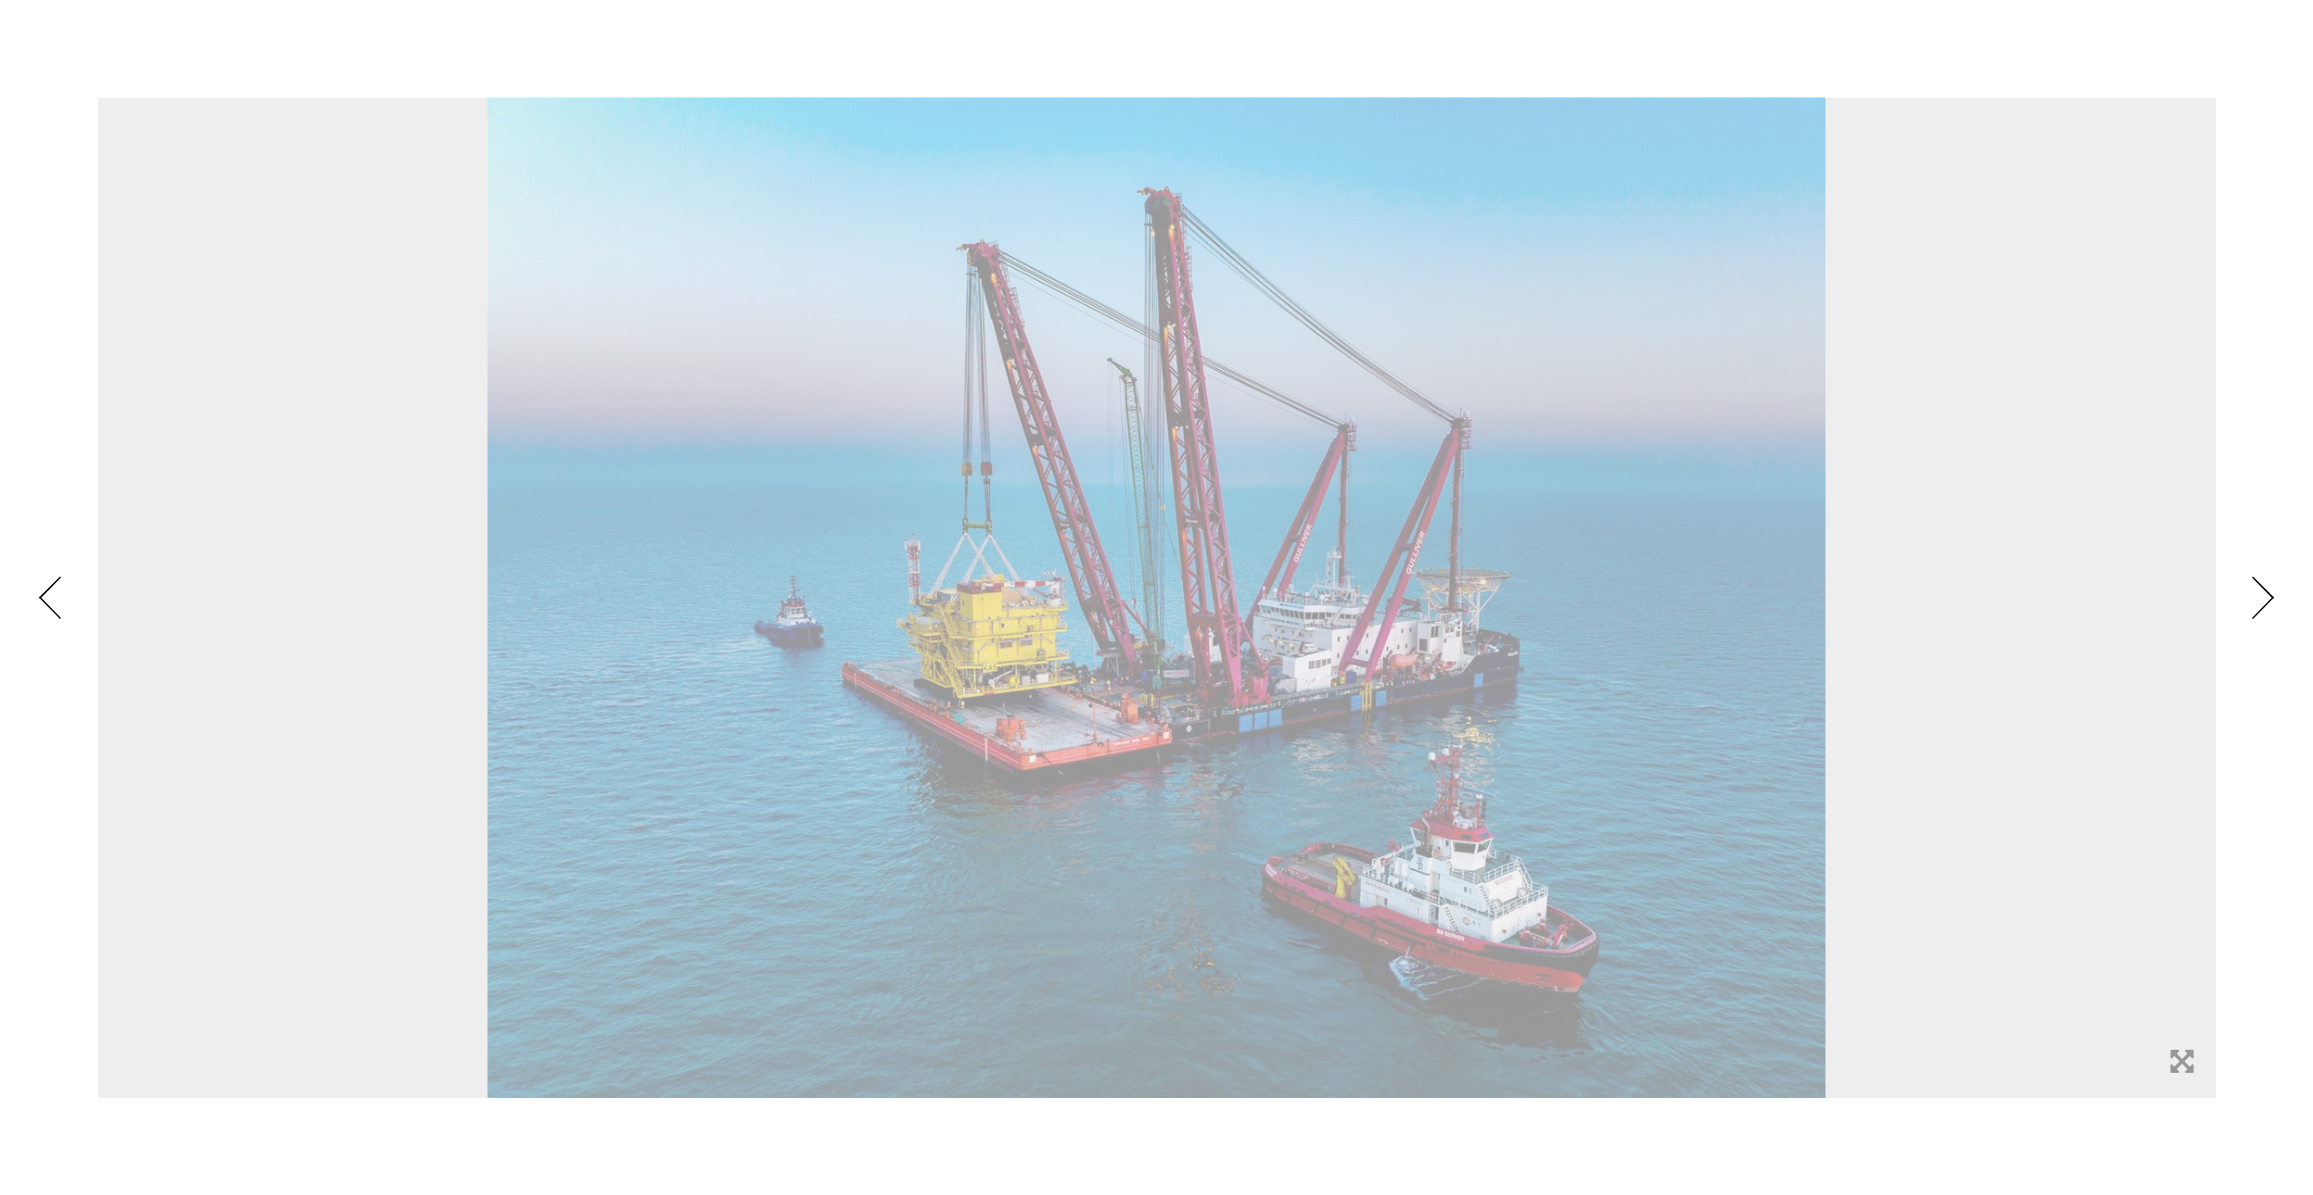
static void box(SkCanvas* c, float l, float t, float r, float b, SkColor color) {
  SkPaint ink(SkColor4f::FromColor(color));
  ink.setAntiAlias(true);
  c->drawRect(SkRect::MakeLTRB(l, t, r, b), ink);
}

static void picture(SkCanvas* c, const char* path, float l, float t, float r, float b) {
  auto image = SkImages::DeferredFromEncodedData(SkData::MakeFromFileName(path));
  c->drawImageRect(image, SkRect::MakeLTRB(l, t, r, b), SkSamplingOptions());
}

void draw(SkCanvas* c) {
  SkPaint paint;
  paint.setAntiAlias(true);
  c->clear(0xffffffff);
  paint.setColor(0xff000000);
  c->drawPath(SkPathBuilder().moveTo(40, 596.5f).lineTo(61, 618).lineTo(60, 619).lineTo(39, 597.5f).close().detach(), paint);
  c->drawPath(SkPathBuilder().moveTo(60, 576.5f).lineTo(61, 577.5f).lineTo(40, 599).lineTo(39, 597.5f).close().detach(), paint);
  box(c, 98, 98, 2216, 1098, 0xffeeeeee);
  picture(c, "img_01.png", 487, 97, 1826, 1098);
  c->drawPath(SkPathBuilder().moveTo(2253, 576.5f).lineTo(2274, 597.5f).lineTo(2273, 599).lineTo(2252, 577.5f).close().detach(), paint);
  c->drawPath(SkPathBuilder().moveTo(2273, 596.5f).lineTo(2274, 597.5f).lineTo(2253, 619).lineTo(2252, 618).close().detach(), paint);
  picture(c, "img_02.png", 2170, 1049, 2194, 1073);
}
